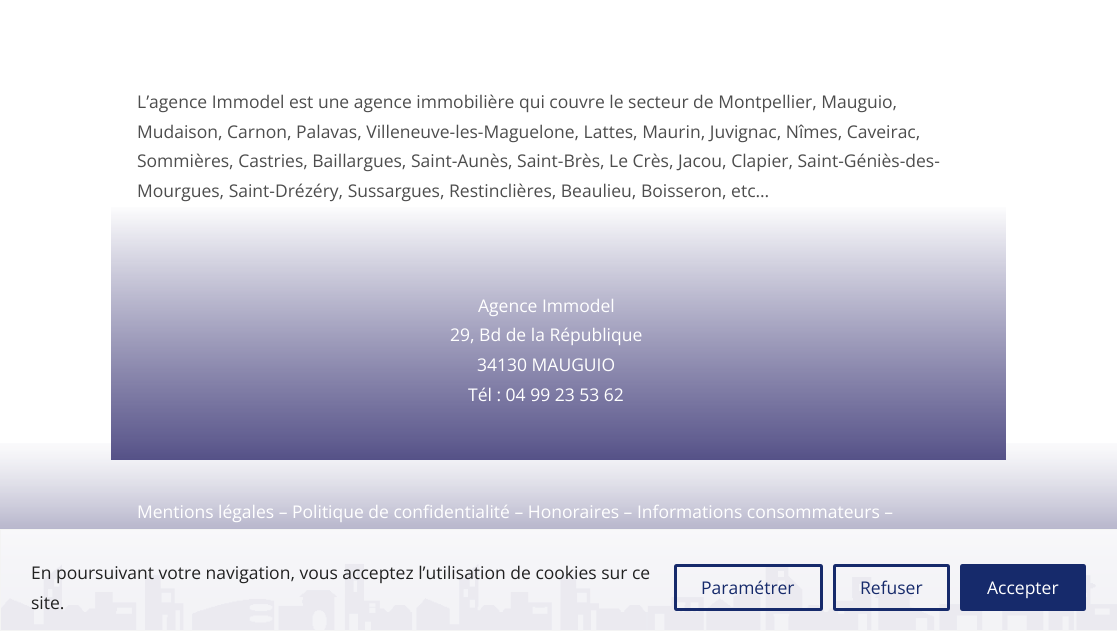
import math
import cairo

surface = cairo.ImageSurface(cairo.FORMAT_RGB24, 1117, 631)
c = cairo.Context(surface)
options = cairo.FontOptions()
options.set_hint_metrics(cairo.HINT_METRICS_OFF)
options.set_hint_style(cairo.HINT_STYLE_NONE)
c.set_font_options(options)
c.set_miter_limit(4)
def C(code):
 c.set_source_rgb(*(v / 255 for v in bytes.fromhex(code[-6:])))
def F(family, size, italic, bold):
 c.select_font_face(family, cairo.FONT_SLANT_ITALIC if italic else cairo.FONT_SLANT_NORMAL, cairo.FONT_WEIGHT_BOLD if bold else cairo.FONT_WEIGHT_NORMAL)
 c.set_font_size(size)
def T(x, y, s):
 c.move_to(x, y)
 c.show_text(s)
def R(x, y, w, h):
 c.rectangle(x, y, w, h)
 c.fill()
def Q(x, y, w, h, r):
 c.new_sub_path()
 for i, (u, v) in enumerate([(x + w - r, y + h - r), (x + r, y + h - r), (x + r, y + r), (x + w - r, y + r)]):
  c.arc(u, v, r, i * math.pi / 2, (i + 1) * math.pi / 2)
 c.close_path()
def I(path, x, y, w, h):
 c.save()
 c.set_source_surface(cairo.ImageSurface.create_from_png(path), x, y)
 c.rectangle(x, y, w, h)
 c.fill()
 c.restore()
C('ffffff')
c.paint()
I('1.png',0,443,1117,187)
gradient = cairo.LinearGradient(559,40,559,460)
gradient.add_color_stop_rgba(.39,1,1,1,.95)
gradient.add_color_stop_rgba(1,0.18,0.161,0.424,.8)
c.set_source(gradient)
R(111,207,895,253)
F('Open Sans',17.5,0,0)
C('4d4d4d')
T(137,108,'L’agence Immodel est une agence immobilière qui couvre le secteur de Montpellier, Mauguio,')
T(137,138,'Mudaison, Carnon, Palavas, Villeneuve-les-Maguelone, Lattes, Maurin, Juvignac, Nîmes, Caveirac,')
T(137,167,'Sommières, Castries, Baillargues, Saint-Aunès, Saint-Brès, Le Crès, Jacou, Clapier, Saint-Géniès-des-')
T(137,197,'Mourgues, Saint-Drézéry, Sussargues, Restinclières, Beaulieu, Boisseron, etc…')
C('ffffff')
T(478,312,'Agence Immodel')
T(450,341,'29, Bd de la République')
T(477,371,'34130 MAUGUIO')
T(468,401,'Tél : 04 99 23 53 62')
T(137,518,'Mentions légales – Politique de confidentialité – Honoraires – Informations consommateurs –')
c.set_source_rgba(1,1,1,0.9)
c.rectangle(.5,529.5,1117,101)
c.fill_preserve()
C('f4f4f4')
c.set_line_width(1)
c.stroke()
C('212121')
T(31,579,'En poursuivant votre navigation, vous acceptez l’utilisation de cookies sur ce')
T(31,609,'site.')
Q(675.5,565.5,146,44,1)
C('162a6b')
c.set_line_width(3)
c.stroke()
T(701,594,'Paramétrer')
Q(834.5,565.5,114,44,1)
c.stroke()
T(860,594,'Refuser')
Q(961.5,565.5,123,44,1)
c.fill_preserve()
c.stroke()
C('ffffff')
T(987,594,'Accepter')
surface.write_to_png('o.png')
